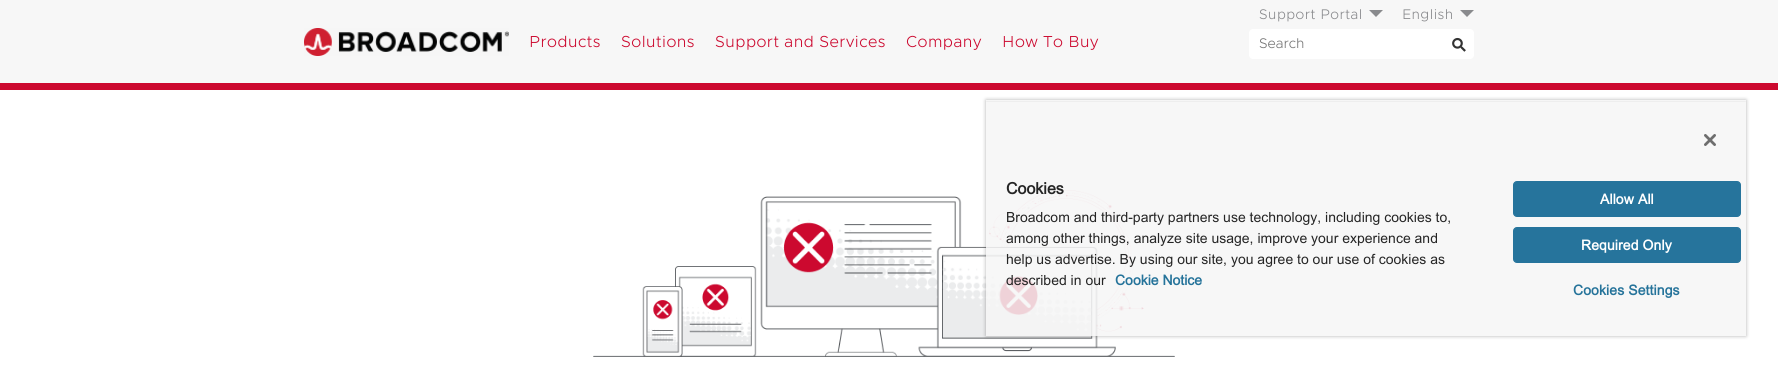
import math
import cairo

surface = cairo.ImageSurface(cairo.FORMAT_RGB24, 1778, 368)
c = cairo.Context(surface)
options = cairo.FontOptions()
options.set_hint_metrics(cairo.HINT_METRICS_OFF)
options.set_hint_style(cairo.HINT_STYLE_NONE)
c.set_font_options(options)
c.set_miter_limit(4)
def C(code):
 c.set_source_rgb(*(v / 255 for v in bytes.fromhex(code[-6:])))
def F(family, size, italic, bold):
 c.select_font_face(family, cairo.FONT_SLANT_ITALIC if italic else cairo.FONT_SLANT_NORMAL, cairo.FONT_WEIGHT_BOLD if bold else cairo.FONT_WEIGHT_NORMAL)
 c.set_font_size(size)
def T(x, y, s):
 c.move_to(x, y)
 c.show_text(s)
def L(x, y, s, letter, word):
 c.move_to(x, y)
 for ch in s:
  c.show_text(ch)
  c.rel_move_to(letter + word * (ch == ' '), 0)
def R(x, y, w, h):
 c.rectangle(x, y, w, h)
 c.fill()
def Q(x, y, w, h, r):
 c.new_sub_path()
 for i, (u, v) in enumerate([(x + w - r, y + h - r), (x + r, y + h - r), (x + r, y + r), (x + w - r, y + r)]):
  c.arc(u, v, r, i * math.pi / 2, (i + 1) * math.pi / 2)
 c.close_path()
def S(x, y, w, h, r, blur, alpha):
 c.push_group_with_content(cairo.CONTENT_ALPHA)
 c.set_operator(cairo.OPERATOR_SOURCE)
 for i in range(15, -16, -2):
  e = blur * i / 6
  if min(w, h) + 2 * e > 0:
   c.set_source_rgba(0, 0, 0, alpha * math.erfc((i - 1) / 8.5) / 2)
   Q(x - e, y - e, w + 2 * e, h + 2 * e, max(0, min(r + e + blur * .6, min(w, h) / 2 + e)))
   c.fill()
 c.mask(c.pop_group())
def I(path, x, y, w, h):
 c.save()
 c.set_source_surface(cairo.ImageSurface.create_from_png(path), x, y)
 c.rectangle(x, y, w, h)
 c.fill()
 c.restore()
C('ffffff')
c.paint()
C('f7f7f7')
R(0,0,1778,83)
C('cc092f')
R(0,83,1778,7)
I('1.png',304,28,205,28)
F('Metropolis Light',14,0,0)
C('898a8d')
L(1259,19,'Support Portal',.5,0)
c.new_path()
c.move_to(1369,10)
c.line_to(1383,10)
c.line_to(1376,17)
c.close_path()
c.fill()
L(1402,19,'English',.5,0)
c.new_path()
c.move_to(1460,10)
c.line_to(1474,10)
c.line_to(1467,17)
c.close_path()
c.fill()
F('Metropolis Light',16,0,0)
C('cc092f')
L(529,47,'Products',.5,0)
L(621,47,'Solutions',.5,0)
L(715,47,'Support and Services',.5,0)
L(906,47,'Company',.5,0)
L(1002,47,'How To Buy',.5,0)
C('ffffff')
Q(1249,29,225,30,4)
c.fill()
F('Metropolis Light',14,0,0)
C('757575')
T(1259,48,'Search')
I('2.png',1452,37,14,15)
I('3.png',593,190,582,167)
c.save()
c.set_fill_rule(cairo.FILL_RULE_EVEN_ODD)
c.new_path()
c.move_to(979,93)
c.line_to(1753,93)
c.line_to(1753,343)
c.line_to(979,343)
c.close_path()
c.move_to(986,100)
c.line_to(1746,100)
c.line_to(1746,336)
c.line_to(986,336)
c.close_path()
c.clip()
C('000000')
S(986,100,760,236,0,2,.3)
c.restore()
c.save()
c.rectangle(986,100,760,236)
c.clip()
c.rectangle(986,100,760,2)
c.clip()
C('262626')
S(986,102,760,234,0,2,.2)
c.restore()
c.set_source_rgba(0.965,0.965,0.965,0.85)
R(986,102,760,234)
I('4.png',1704,134,12,12)
F('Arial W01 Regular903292',16,0,1)
C('252525')
T(1006,194,'Cookies')
F('Arial W01 Regular903292',14,0,0)
T(1006,222,'Broadcom and third-party partners use technology, including cookies to,')
T(1006,243,'among other things, analyze site usage, improve your experience and')
T(1006,264,'help us advertise. By using our site, you agree to our use of cookies as')
T(1006,285,'described in our')
F('Arial W01 Regular903292',14,0,1)
C('25739a')
T(1115,285,'Cookie Notice')
C('26749c')
Q(1513.5,181.5,227,35,3.5)
c.fill_preserve()
c.set_line_width(1)
c.stroke()
C('ffffff')
L(1600,204,'Allow All',.1,0)
C('26749c')
Q(1513.5,227.5,227,35,3.5)
c.fill_preserve()
c.stroke()
C('ffffff')
L(1581,250,'Required Only',.1,0)
C('25739a')
L(1573,295,'Cookies Settings',.1,0)
surface.write_to_png('o.png')
